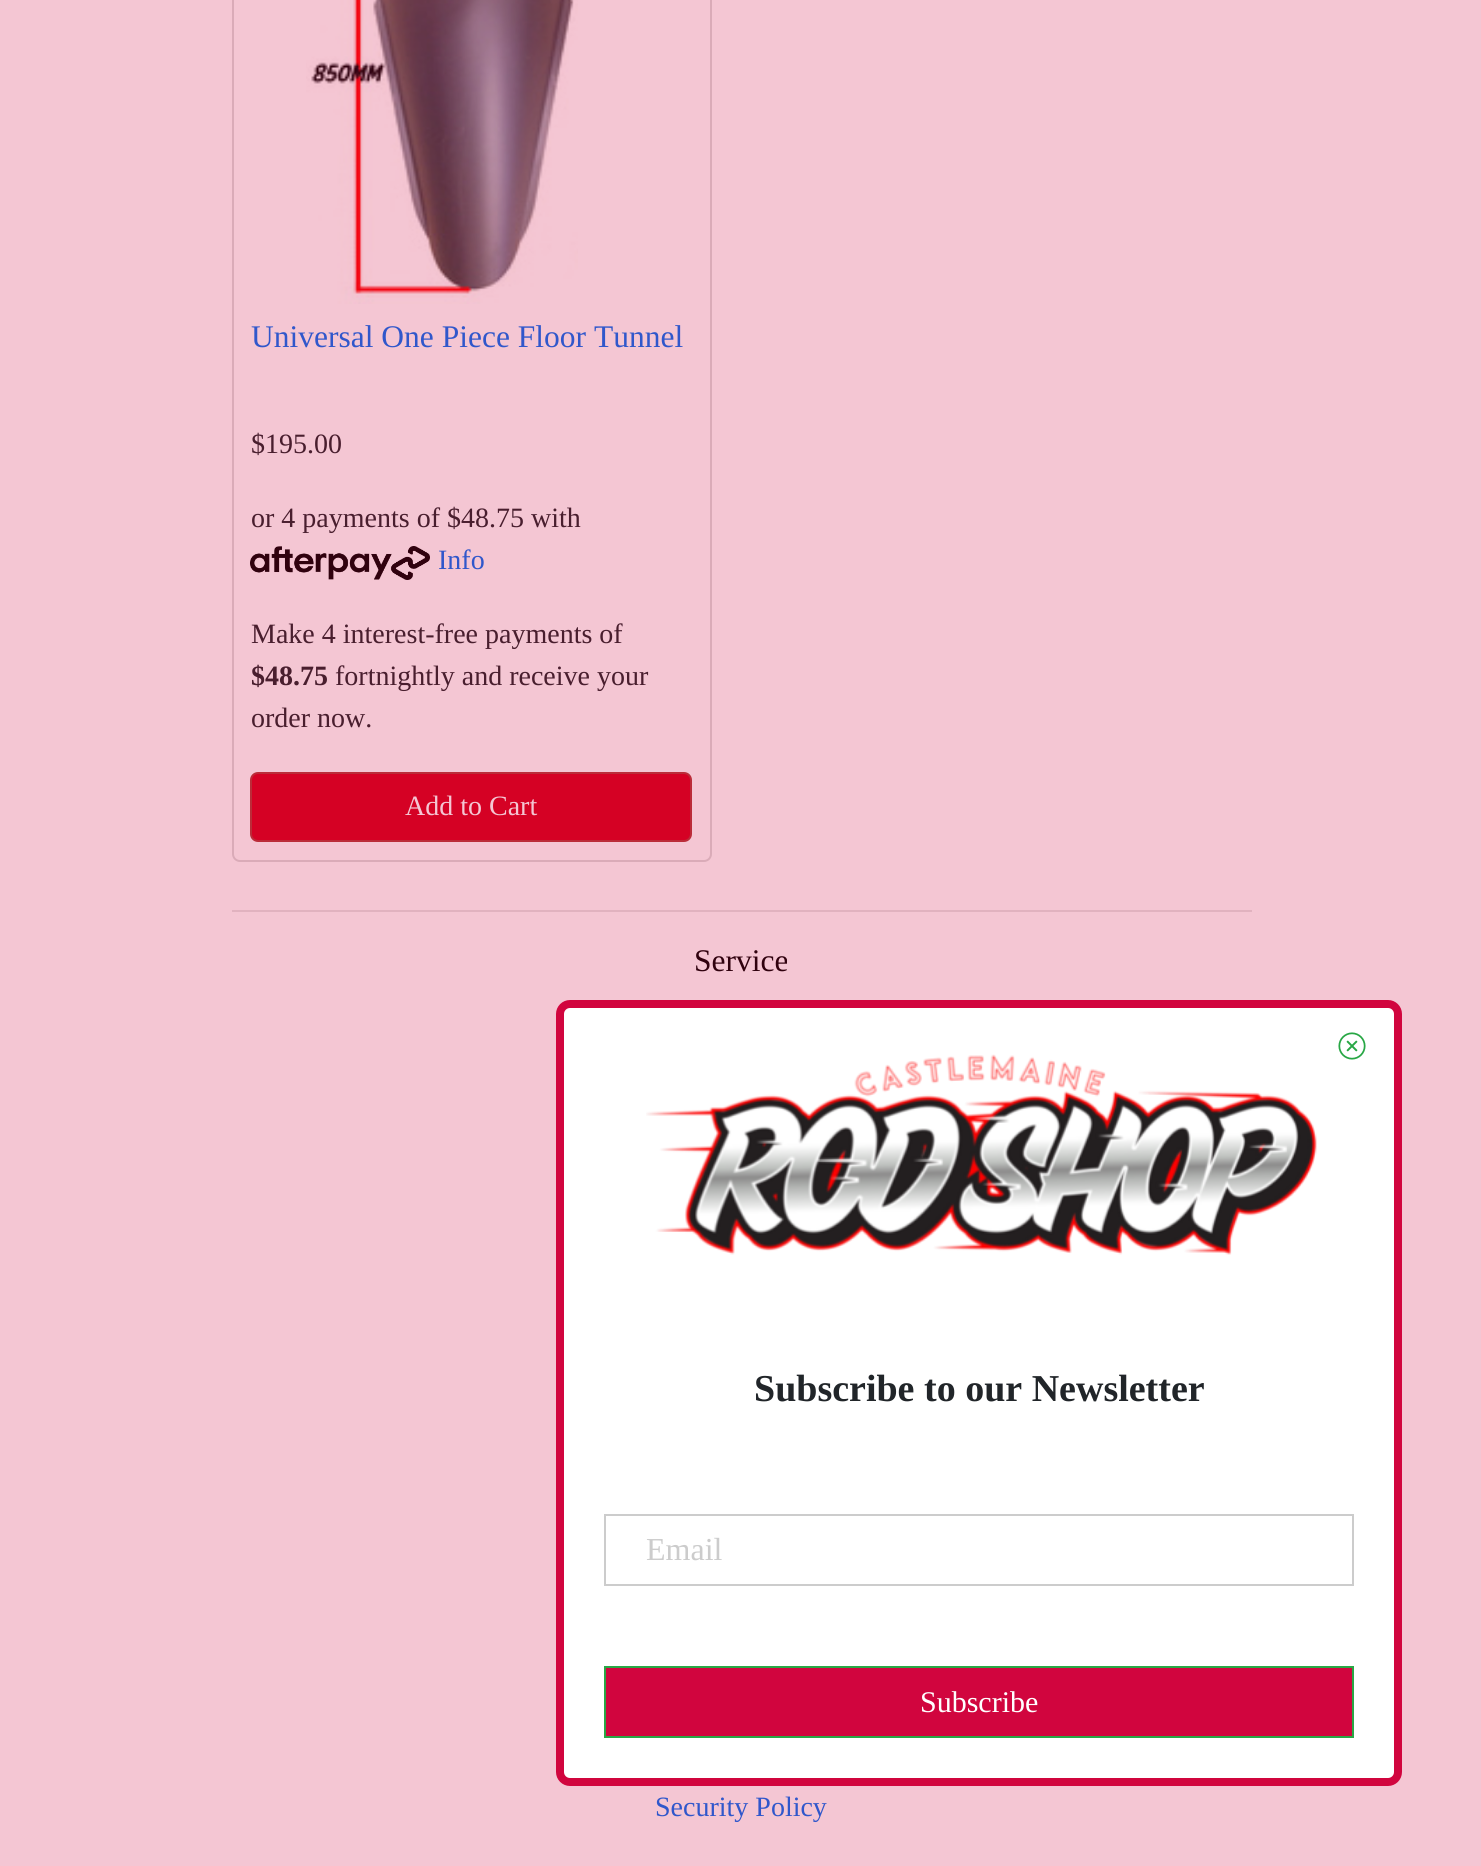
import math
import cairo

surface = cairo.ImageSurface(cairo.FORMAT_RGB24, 1481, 1866)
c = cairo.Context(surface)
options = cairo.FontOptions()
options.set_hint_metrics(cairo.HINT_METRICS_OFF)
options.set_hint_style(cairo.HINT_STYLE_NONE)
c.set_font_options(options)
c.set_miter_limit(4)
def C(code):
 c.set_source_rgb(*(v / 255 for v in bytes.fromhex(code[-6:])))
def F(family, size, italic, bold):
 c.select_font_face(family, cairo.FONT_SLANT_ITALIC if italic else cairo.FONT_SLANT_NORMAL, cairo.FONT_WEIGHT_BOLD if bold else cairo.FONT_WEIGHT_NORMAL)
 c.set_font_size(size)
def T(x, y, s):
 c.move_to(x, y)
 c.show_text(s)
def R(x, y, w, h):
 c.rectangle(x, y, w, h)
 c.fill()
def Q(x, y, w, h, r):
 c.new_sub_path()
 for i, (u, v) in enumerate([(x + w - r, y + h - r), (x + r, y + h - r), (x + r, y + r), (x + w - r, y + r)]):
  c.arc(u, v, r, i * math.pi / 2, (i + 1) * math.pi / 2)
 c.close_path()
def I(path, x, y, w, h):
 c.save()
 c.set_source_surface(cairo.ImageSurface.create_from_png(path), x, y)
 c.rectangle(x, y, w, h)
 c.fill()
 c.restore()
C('f4c6d3')
c.paint()
Q(233,-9,478,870,7)
C('daabb8')
c.stroke()
I('1.png',306,0,272,304)
F('Liberation Serif',31.5,0,0)
C('3057cb')
T(251,347,'Universal One Piece Floor Tunnel')
F('Liberation Serif',28,0,0)
C('491e2e')
T(251,453,'$195.00')
T(251,527,'or 4 payments of $48.75 with')
I('2.png',250,546,180,34)
C('3057cb')
T(438,569,'Info')
C('491e2e')
T(251,643,'Make 4 interest-free payments of')
F('Liberation Serif',28,0,1)
T(251,685,'$48.75')
F('Liberation Serif',28,0,0)
T(335,685,'fortnightly and receive your')
T(251,727,'order now.')
C('d50124')
Q(251,773,440,68,7)
c.fill_preserve()
C('bb2c39')
c.stroke()
C('f4c6d3')
T(405,815,'Add to Cart')
C('e1b2bf')
R(232,910,1020,2)
F('Liberation Serif',31.5,0,0)
C('30010e')
T(694,971,'Service')
F('Liberation Serif',28,0,0)
C('3057cb')
T(655,1816,'Security Policy')
C('ffffff')
Q(560,1004,838,778,10)
c.fill_preserve()
C('d1053e')
c.set_line_width(8)
c.stroke()
I('3.png',1338,1032,28,28)
I('4.png',646,1054,671,201)
F('Liberation Serif',38,0,1)
C('212529')
T(754,1401,'Subscribe to our Newsletter')
c.rectangle(605,1515,748,70)
C('cccccc')
c.set_line_width(2)
c.stroke()
F('Liberation Serif',32,0,0)
T(646,1560,'Email')
C('d1053e')
c.rectangle(605,1667,748,70)
c.fill_preserve()
C('28a745')
c.stroke()
F('Liberation Serif',30,0,0)
C('ffffff')
T(920,1712,'Subscribe')
surface.write_to_png('o.png')
